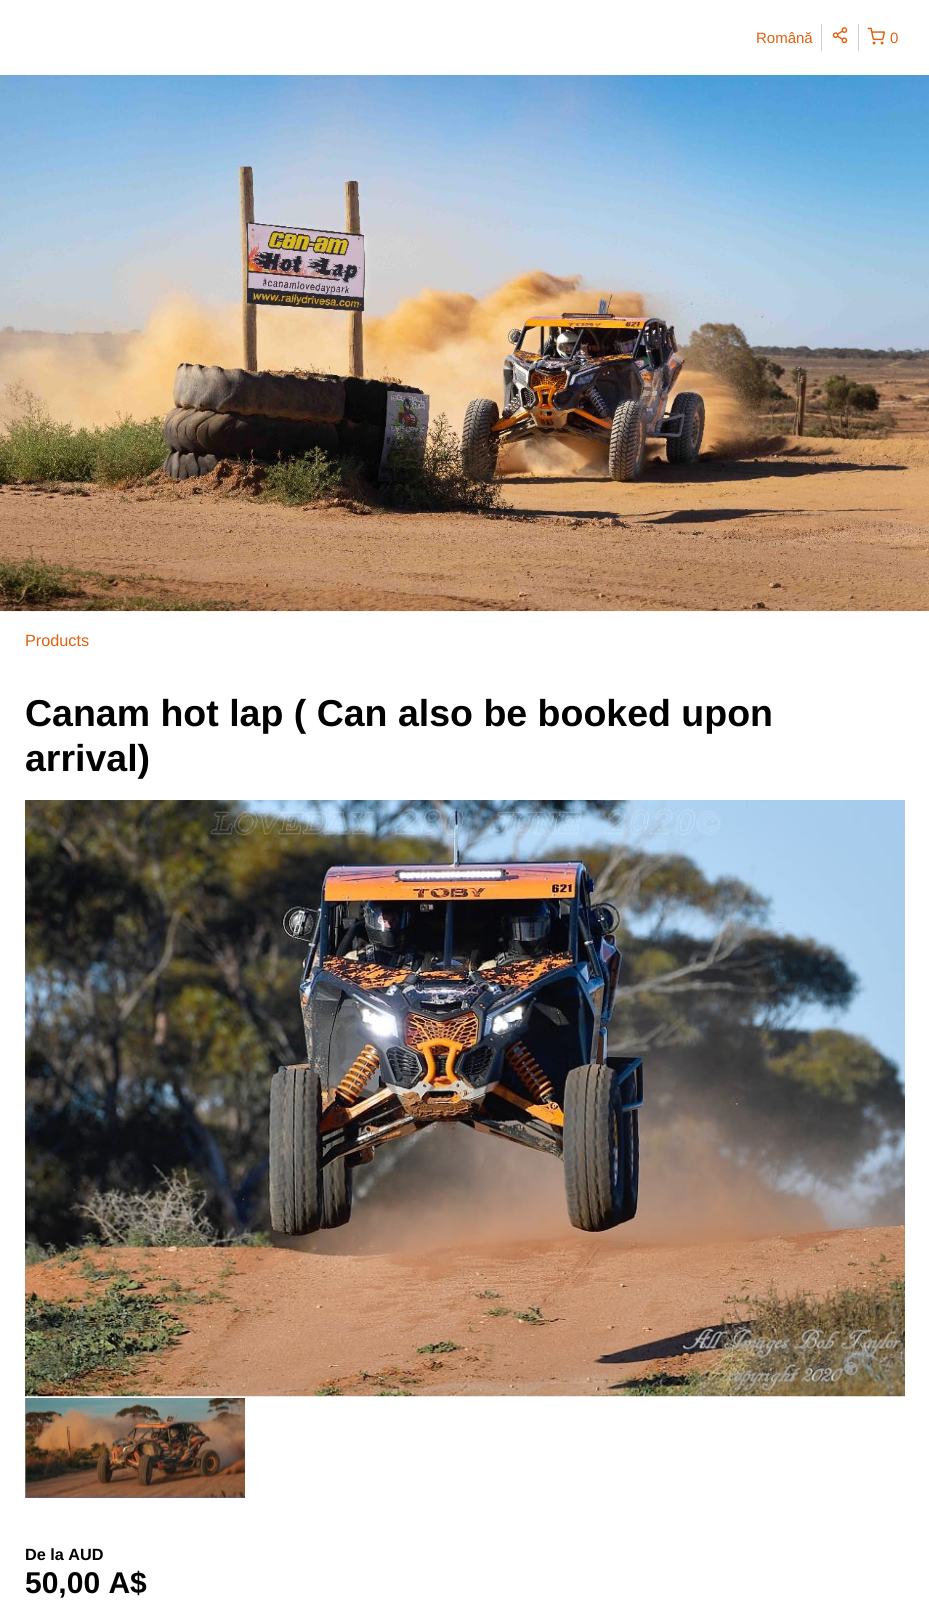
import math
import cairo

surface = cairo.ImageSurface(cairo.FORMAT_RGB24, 929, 1608)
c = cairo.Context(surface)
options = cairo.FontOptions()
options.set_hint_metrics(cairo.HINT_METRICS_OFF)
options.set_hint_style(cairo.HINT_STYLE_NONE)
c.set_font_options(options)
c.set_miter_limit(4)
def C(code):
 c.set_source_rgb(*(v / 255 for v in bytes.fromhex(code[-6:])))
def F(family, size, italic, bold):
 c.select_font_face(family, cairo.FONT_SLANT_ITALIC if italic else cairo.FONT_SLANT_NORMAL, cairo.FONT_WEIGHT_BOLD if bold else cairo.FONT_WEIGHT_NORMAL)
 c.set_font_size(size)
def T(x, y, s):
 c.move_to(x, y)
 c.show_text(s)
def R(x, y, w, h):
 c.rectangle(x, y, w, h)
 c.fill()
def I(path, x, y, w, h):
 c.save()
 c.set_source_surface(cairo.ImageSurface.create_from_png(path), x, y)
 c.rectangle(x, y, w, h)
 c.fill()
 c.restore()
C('ffffff')
c.paint()
C('ccd1ca')
R(821,24,1,27)
F('Liberation Sans',15,0,0)
C('e06010')
T(756,43,'Română')
C('ccd1ca')
R(858,24,1,27)
I('1.png',832,27,16,17)
I('2.png',867,27,18,18)
C('e06010')
T(890,43,'0')
I('3.png',0,75,929,537)
F('Liberation Sans',16.25,0,0)
T(25,646,'Products')
F('Liberation Sans',37.5,0,1)
C('000000')
T(25,726,'Canam hot lap ( Can also be booked upon')
T(25,771,'arrival)')
I('4.png',25,800,880,597)
C('3c68b4')
R(25,1497,220,1)
I('5.png',25,1398,220,100)
c.set_source_rgba(0.596,0.639,0.58,0.5)
R(25,1398,1,100)
F('Liberation Sans',16.25,0,1)
C('000000')
T(25,1560,'De la AUD')
F('Liberation Sans',30,0,1)
T(25,1593,'50,00 A$')
surface.write_to_png('o.png')
